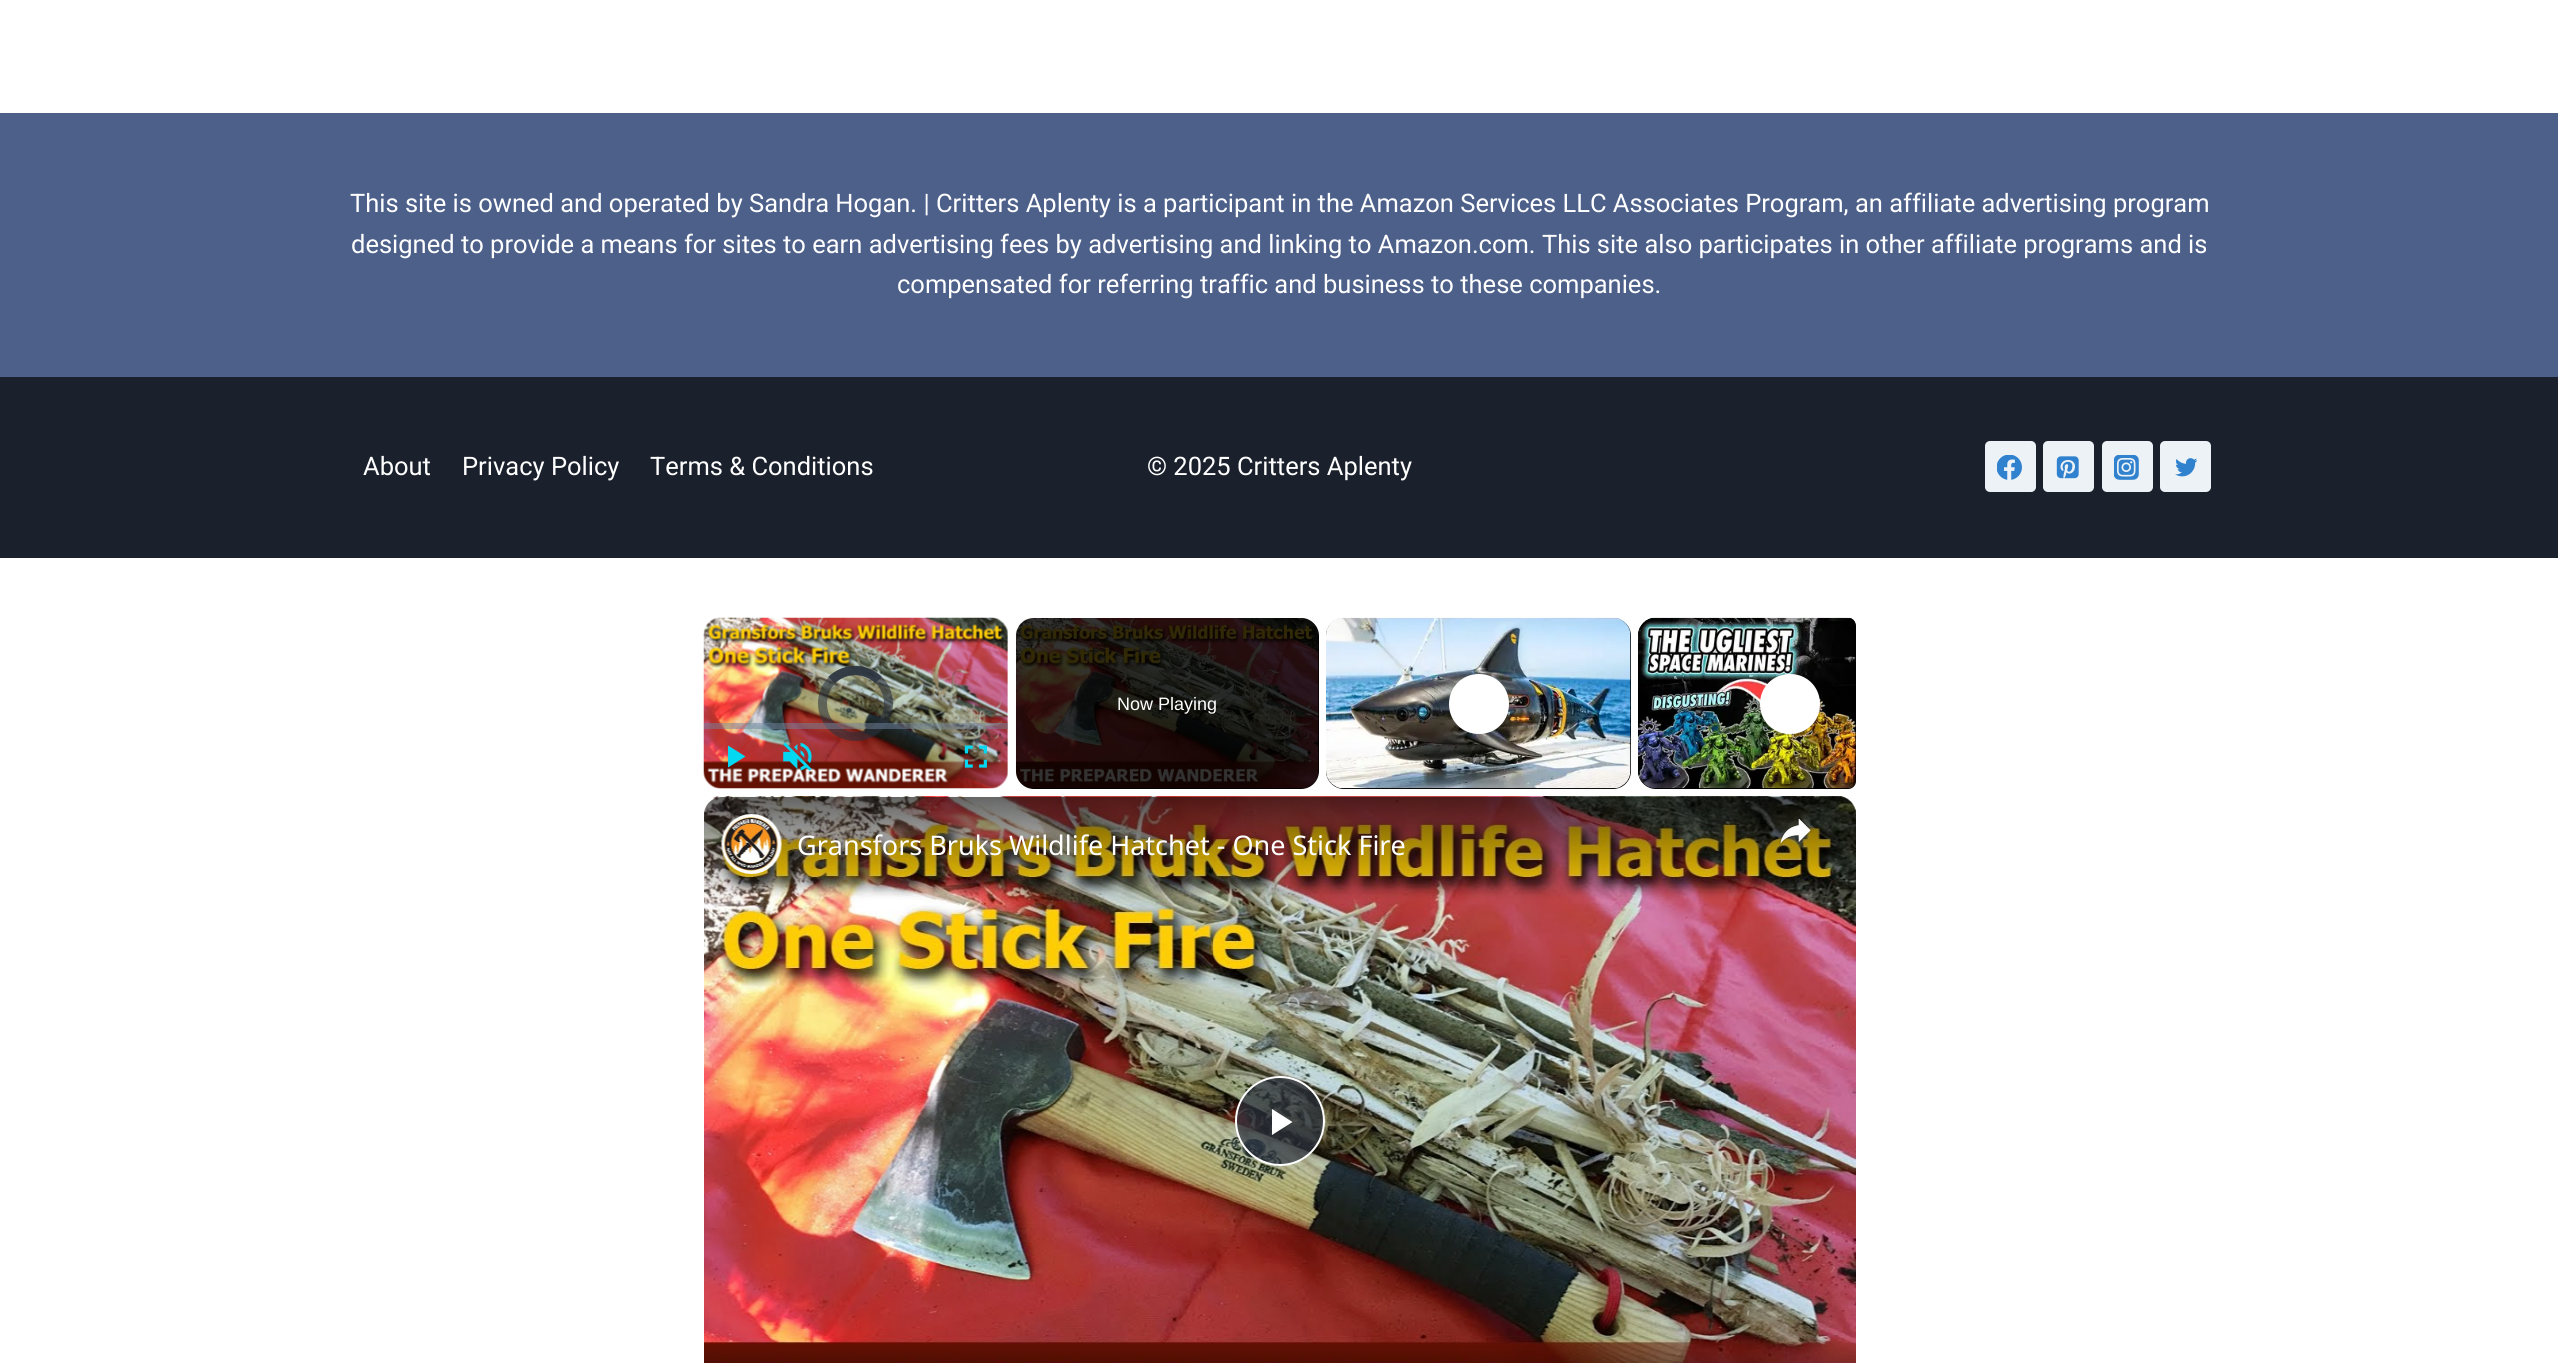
import math
import cairo

surface = cairo.ImageSurface(cairo.FORMAT_RGB24, 2558, 1363)
c = cairo.Context(surface)
options = cairo.FontOptions()
options.set_hint_metrics(cairo.HINT_METRICS_OFF)
options.set_hint_style(cairo.HINT_STYLE_NONE)
c.set_font_options(options)
c.set_miter_limit(4)
def C(code):
 c.set_source_rgb(*(v / 255 for v in bytes.fromhex(code[-6:])))
def F(family, size, italic, bold):
 c.select_font_face(family, cairo.FONT_SLANT_ITALIC if italic else cairo.FONT_SLANT_NORMAL, cairo.FONT_WEIGHT_BOLD if bold else cairo.FONT_WEIGHT_NORMAL)
 c.set_font_size(size)
def T(x, y, s):
 c.move_to(x, y)
 c.show_text(s)
def R(x, y, w, h):
 c.rectangle(x, y, w, h)
 c.fill()
def Q(x, y, w, h, r):
 c.new_sub_path()
 for i, (u, v) in enumerate([(x + w - r, y + h - r), (x + r, y + h - r), (x + r, y + r), (x + w - r, y + r)]):
  c.arc(u, v, r, i * math.pi / 2, (i + 1) * math.pi / 2)
 c.close_path()
def I(path, x, y, w, h):
 c.save()
 c.set_source_surface(cairo.ImageSurface.create_from_png(path), x, y)
 c.rectangle(x, y, w, h)
 c.fill()
 c.restore()
C('ffffff')
c.paint()
C('4d608a')
R(0,113,2558,264)
F('Roboto',25.5,0,0)
C('ffffff')
T(350,212,'This site is owned and operated by Sandra Hogan. | Critters Aplenty is a participant in the Amazon Services LLC Associates Program, an affiliate advertising program')
T(351,253,'designed to provide a means for sites to earn advertising fees by advertising and linking to Amazon.com. This site also participates in other affiliate programs and is')
T(897,293,'compensated for referring traffic and business to these companies.')
C('1a202c')
R(0,377,2558,181)
C('ffffff')
T(363,475,'About')
T(462,475,'Privacy Policy')
T(650,475,'Terms & Conditions')
T(1147,475,'© 2025 Critters Aplenty')
C('edf2f7')
Q(1985,441,51,51,5)
c.fill()
I('1.png',1997,455,25,25)
Q(2043,441,51,51,5)
c.fill()
I('2.png',2056,456,23,23)
Q(2102,441,51,51,5)
c.fill()
I('3.png',2114,455,25,25)
Q(2160,441,51,51,5)
c.fill()
I('4.png',2175,458,23,19)
I('5.png',703,617,305,172)
c.arc(855.5,703.5,33,0,2 * math.pi)
c.set_source_rgba(0.169,0.2,0.247,0.59)
c.set_line_width(9)
c.stroke()
c.new_path()
c.move_to(831.5,680)
c.curve_to(844.5,667.5,865.5,667.5,878.5,680)
c.stroke()
c.new_path()
c.move_to(831.5,680)
c.curve_to(844.5,667.5,865.5,667.5,878.5,680)
c.stroke()
c.set_source_rgba(0.451,0.522,0.624,0.5)
R(704,723,304,6)
C('03d8f3')
c.new_path()
c.move_to(728,745.5)
c.line_to(728,767.5)
c.line_to(745.5,756.5)
c.close_path()
c.fill()
I('6.png',783,742,29,29)
I('7.png',964,745,23,23)
C('000000')
Q(1016,618,303,171,18)
c.fill()
I('8.png',1015,618,304,170)
F('Liberation Sans',18,0,0)
C('ffffff')
T(1117,710,'Now Playing')
C('000000')
Q(1326,618,305,171,18)
c.fill()
I('9.png',1326,617,305,172)
C('ffffff')
c.new_path()
c.move_to(1479,674)
c.curve_to(1462,674,1449,687,1449,704)
c.curve_to(1449,721,1462,734,1479,734)
c.curve_to(1496,734,1509,721,1509,704)
c.curve_to(1509,687,1496,674,1479,674)
c.close_path()
c.fill()
C('000000')
c.new_path()
c.move_to(1656,618)
c.line_to(1848,618)
c.curve_to(1852.5,618,1856,621.5,1856,626)
c.line_to(1856,781)
c.curve_to(1856,785.5,1852.5,789,1848,789)
c.line_to(1656,789)
c.curve_to(1646,789,1638,781,1638,771)
c.line_to(1638,636)
c.curve_to(1638,626,1646,618,1656,618)
c.close_path()
c.fill()
I('10.png',1638,617,218,172)
C('ffffff')
c.new_path()
c.move_to(1790,674)
c.curve_to(1773,674,1760,687,1760,704)
c.curve_to(1760,721,1773,734,1790,734)
c.curve_to(1807,734,1820,721,1820,704)
c.curve_to(1820,687,1807,674,1790,674)
c.close_path()
c.fill()
I('11.png',704,796,1152,567)
I('12.png',704,796,1152,18)
c.set_source_rgba(0.169,0.2,0.247,0.7)
c.arc(1280,1121,44,0,2 * math.pi)
c.fill_preserve()
C('ffffff')
c.set_line_width(2)
c.stroke()
c.new_path()
c.move_to(1272,1109)
c.line_to(1272,1135)
c.line_to(1292.5,1122)
c.close_path()
c.fill()
gradient = cairo.LinearGradient(1280,797,1280,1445)
gradient.add_color_stop_rgba(0,0,0,0,.6)
gradient.add_color_stop_rgba(.16,0,0,0,0)
gradient.add_color_stop_rgba(.84,0,0,0,0)
gradient.add_color_stop_rgba(1,0,0,0,.8)
c.set_source(gradient)
Q(704,797,1152,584,18)
c.fill()
I('13.png',721,814,61,60)
F('Noto Sans',27,0,0)
C('ffffff')
T(797,855,'Gransfors Bruks Wildlife Hatchet - One Stick Fire')
I('14.png',1779,817,34,28)
surface.write_to_png('o.png')
